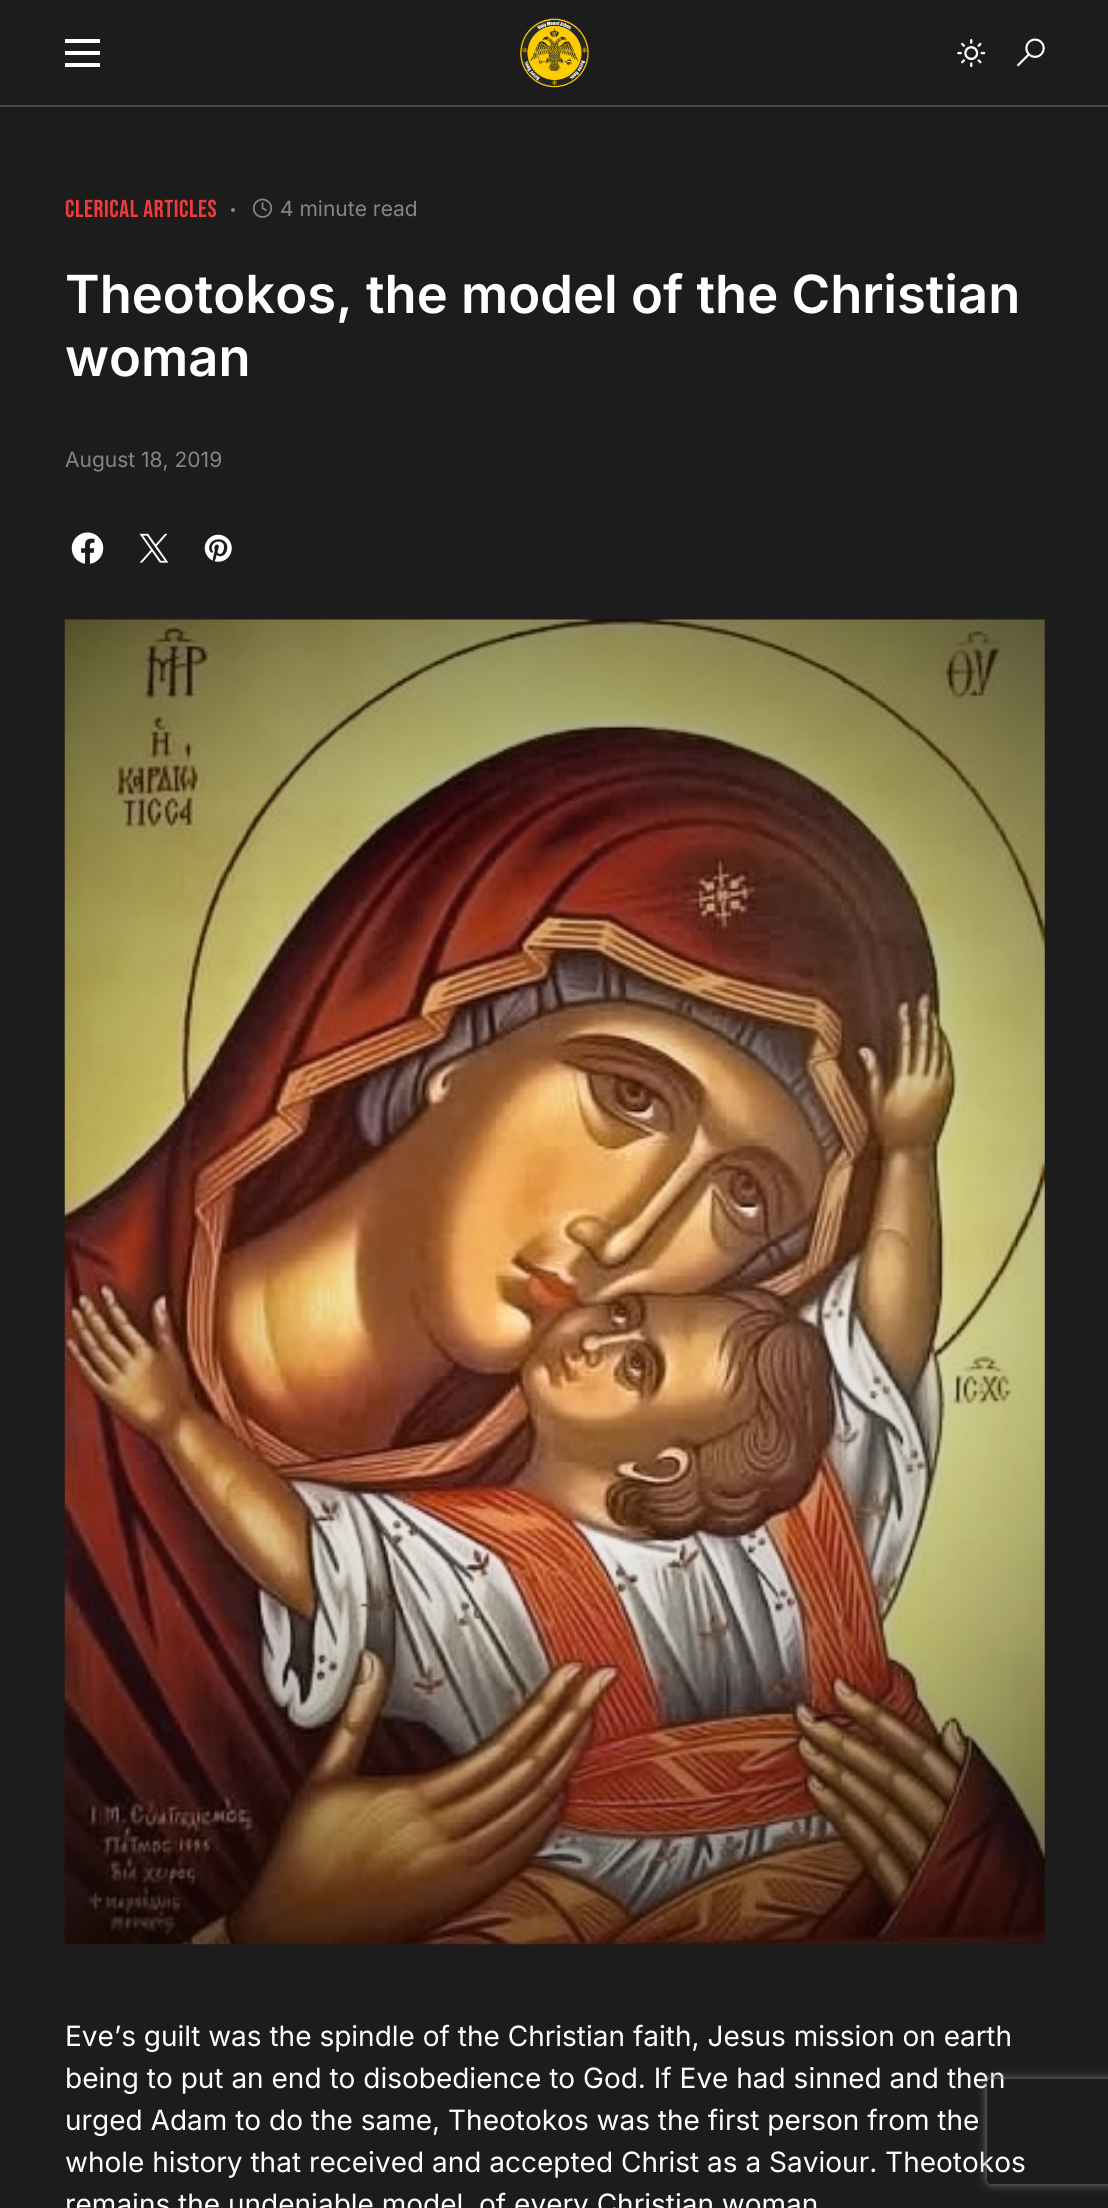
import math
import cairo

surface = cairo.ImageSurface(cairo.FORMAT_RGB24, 1108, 2208)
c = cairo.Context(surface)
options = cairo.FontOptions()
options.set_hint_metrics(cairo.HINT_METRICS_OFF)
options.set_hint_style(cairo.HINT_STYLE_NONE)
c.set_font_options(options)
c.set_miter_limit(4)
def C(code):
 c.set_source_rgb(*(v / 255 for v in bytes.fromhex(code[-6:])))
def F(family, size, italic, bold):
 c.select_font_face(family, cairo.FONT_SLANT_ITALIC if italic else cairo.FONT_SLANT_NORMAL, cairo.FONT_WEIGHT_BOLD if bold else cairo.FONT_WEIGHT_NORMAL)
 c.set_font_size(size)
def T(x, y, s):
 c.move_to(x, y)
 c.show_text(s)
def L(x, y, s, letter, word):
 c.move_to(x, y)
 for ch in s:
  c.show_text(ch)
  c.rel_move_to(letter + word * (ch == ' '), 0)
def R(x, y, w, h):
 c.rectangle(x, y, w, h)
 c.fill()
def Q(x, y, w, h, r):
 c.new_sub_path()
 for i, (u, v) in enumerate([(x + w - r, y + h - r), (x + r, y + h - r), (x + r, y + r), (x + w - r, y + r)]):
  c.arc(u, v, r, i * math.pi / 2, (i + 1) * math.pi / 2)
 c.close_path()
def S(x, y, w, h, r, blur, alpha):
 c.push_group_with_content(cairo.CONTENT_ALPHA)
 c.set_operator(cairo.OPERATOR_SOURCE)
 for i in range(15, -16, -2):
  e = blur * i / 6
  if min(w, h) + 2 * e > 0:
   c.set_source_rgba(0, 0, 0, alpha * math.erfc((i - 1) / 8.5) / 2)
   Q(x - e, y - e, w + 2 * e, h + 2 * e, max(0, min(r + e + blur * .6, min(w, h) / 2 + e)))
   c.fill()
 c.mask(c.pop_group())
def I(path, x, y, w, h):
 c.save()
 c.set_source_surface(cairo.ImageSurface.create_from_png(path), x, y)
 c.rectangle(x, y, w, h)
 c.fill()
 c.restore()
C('1c1c1c')
c.paint()
C('49494b')
R(0,105,1108,2)
C('ffffff')
R(65,39,35,4)
R(65,51,35,4)
R(65,63,35,4)
I('1.png',520,17,69,71)
I('2.png',957,39,29,29)
I('3.png',1016,38,29,29)
F('Bebas Neue',24.5,0,0)
C('f23a3a')
L(65,217,'CLERICAL ARTICLES',.6,0)
C('858585')
c.new_path()
c.arc(233,210,2,0,2 * math.pi)
c.fill()
I('4.png',252,198,21,20)
F('Inter',21,0,0)
T(280,216,'4 minute read')
F('Inter SemiBold',52.5,0,0)
C('ffffff')
T(65,313,'Theotokos, the model of the Christian')
T(65,376,'woman')
F('Inter',21,0,0)
C('858585')
T(65,467,'August 18, 2019')
I('5.png',71,532,33,32)
I('6.png',139,533,30,30)
I('7.png',204,534,28,28)
I('8.png',64,619,981,1326)
F('Inter',28,0,0)
C('ffffff')
T(65,2046,'Eve’s guilt was the spindle of the Christian faith, Jesus mission on earth')
T(65,2088,'being to put an end to disobedience to God. If Eve had sinned and then')
T(65,2130,'urged Adam to do the same, Theotokos was the first person from the')
T(65,2172,'whole history that received and accepted Christ as a Saviour. Theotokos')
T(65,2214,'remains the undeniable model  of every Christian woman')
c.save()
c.set_fill_rule(cairo.FILL_RULE_EVEN_ODD)
c.new_path()
c.move_to(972,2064)
c.line_to(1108,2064)
c.line_to(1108,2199)
c.line_to(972,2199)
c.close_path()
c.move_to(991,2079)
c.line_to(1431,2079)
c.curve_to(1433,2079,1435,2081,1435,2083)
c.line_to(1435,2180)
c.curve_to(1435,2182,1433,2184,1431,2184)
c.line_to(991,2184)
c.curve_to(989,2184,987,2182,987,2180)
c.line_to(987,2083)
c.curve_to(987,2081,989,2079,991,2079)
c.close_path()
c.clip()
C('808080')
S(987,2079,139,105,4,4.5,1)
c.restore()
surface.write_to_png('o.png')
